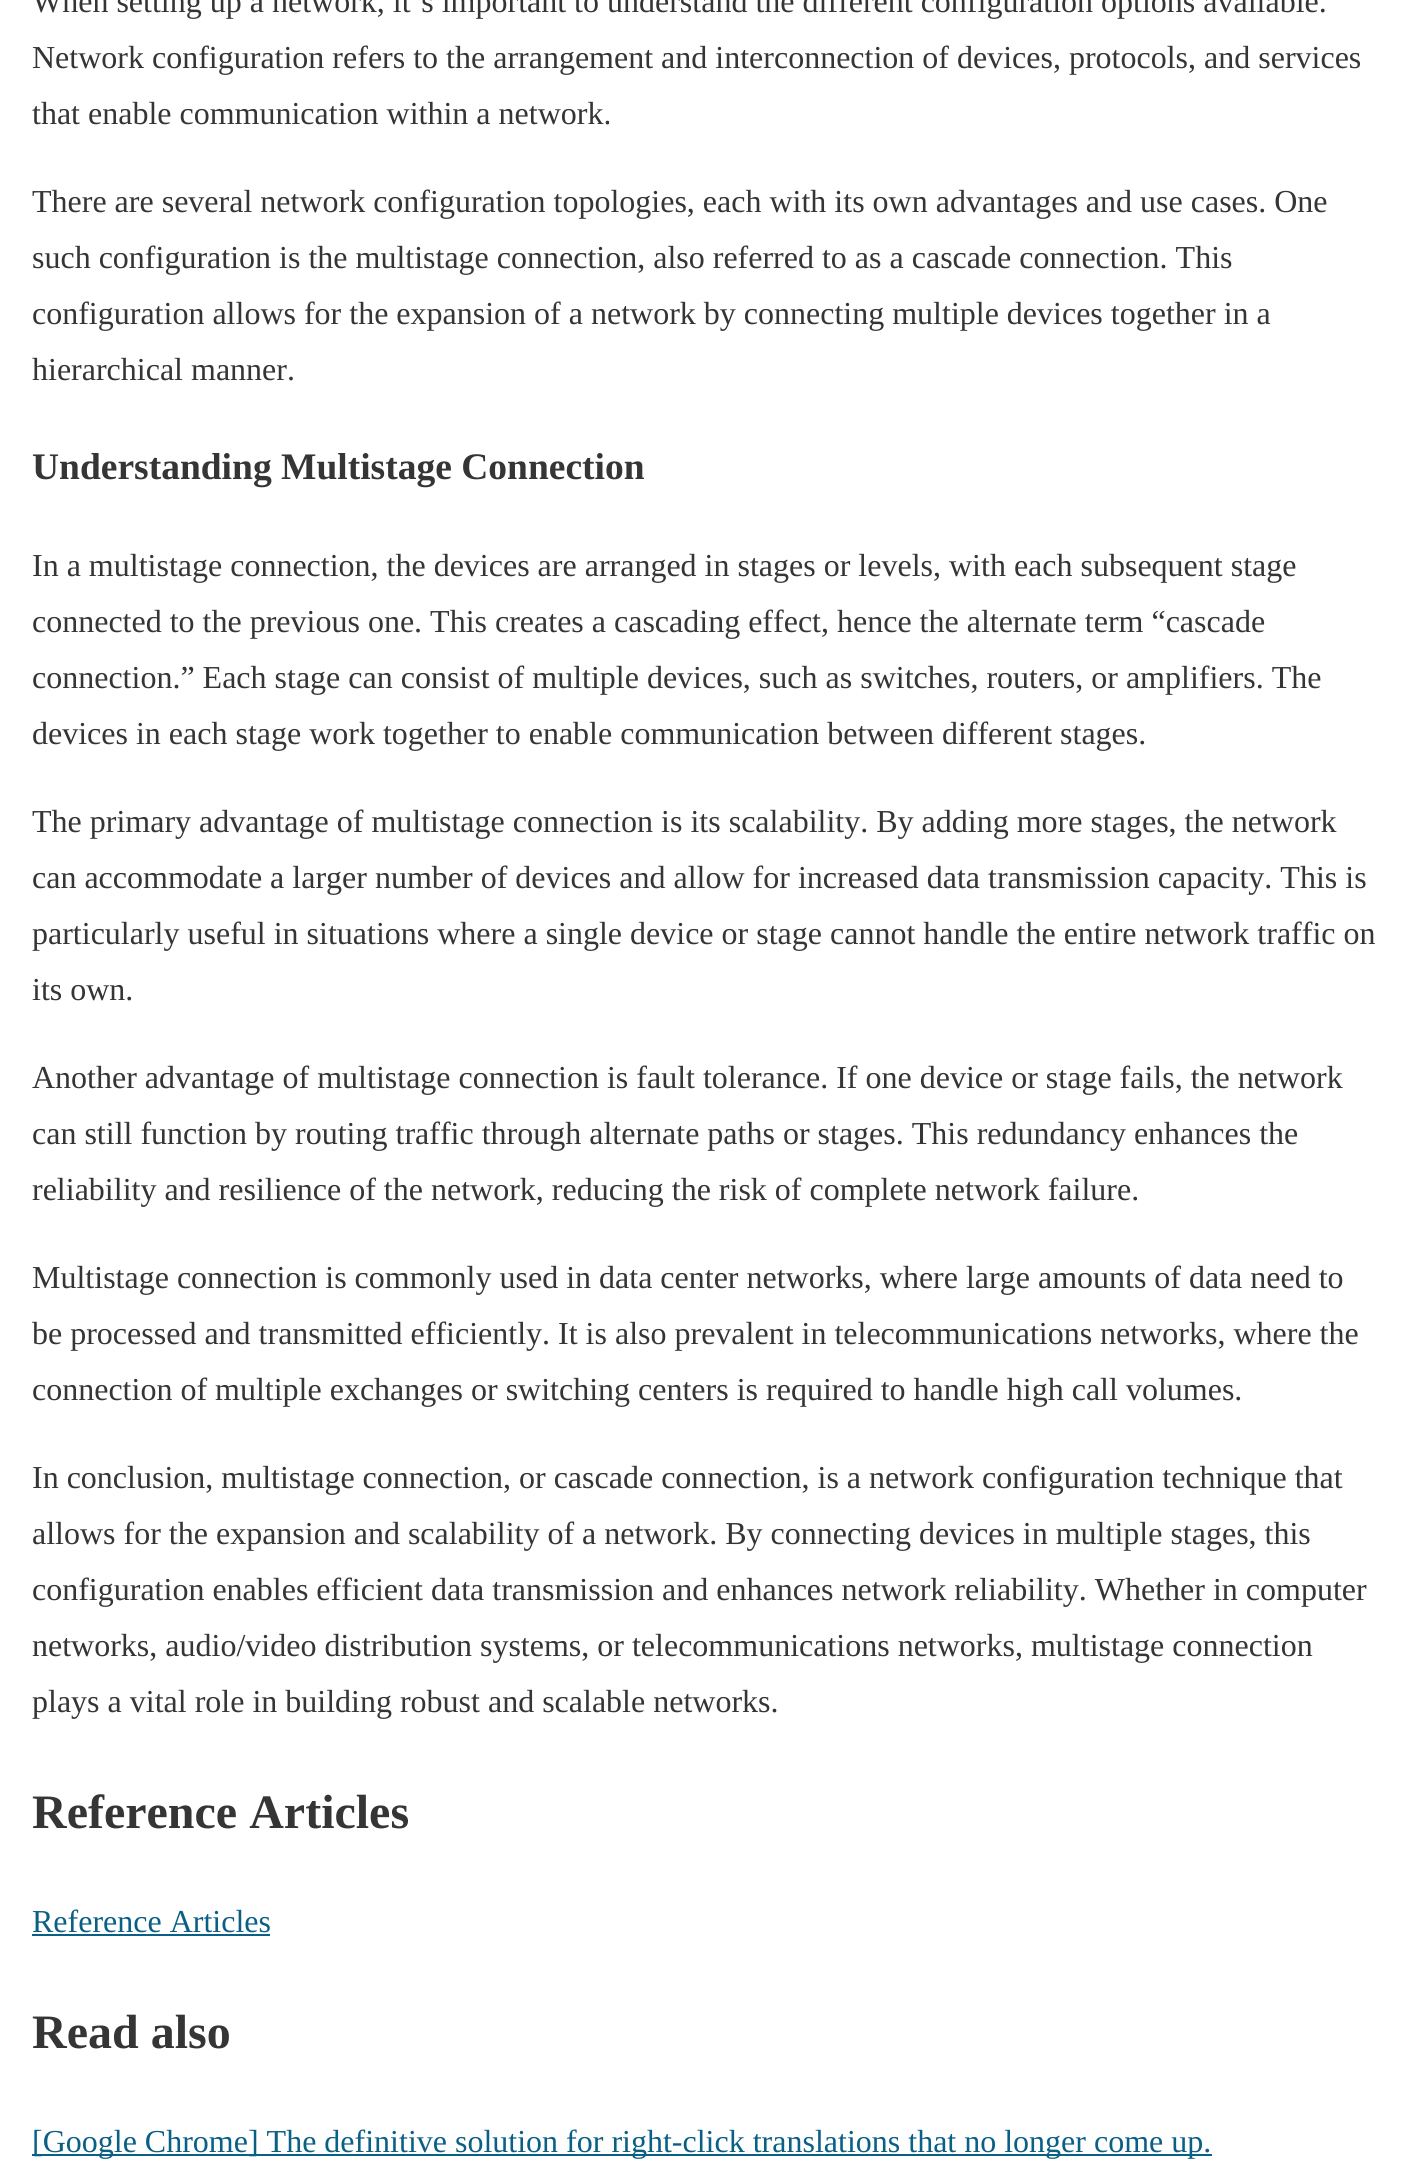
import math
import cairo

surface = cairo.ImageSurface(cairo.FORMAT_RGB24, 1411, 2162)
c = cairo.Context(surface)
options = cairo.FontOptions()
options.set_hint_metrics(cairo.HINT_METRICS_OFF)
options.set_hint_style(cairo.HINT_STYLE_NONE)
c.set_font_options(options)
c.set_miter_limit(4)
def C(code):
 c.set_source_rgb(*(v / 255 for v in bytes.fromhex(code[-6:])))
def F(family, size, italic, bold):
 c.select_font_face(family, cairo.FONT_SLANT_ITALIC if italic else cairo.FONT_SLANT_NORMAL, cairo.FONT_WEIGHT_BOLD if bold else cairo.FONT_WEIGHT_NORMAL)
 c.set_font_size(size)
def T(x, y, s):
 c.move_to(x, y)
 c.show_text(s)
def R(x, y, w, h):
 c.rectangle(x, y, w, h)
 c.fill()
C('ffffff')
c.paint()
F('Liberation Serif',32,0,0)
C('353535')
T(32,12,'When setting up a network, it’s important to understand the different configuration options available.')
T(32,68,'Network configuration refers to the arrangement and interconnection of devices, protocols, and services')
T(32,124,'that enable communication within a network.')
T(32,212,'There are several network configuration topologies, each with its own advantages and use cases. One')
T(32,268,'such configuration is the multistage connection, also referred to as a cascade connection. This')
T(32,324,'configuration allows for the expansion of a network by connecting multiple devices together in a')
T(32,380,'hierarchical manner.')
F('Liberation Serif',37.5,0,1)
T(32,479,'Understanding Multistage Connection')
F('Liberation Serif',32,0,0)
T(32,576,'In a multistage connection, the devices are arranged in stages or levels, with each subsequent stage')
T(32,632,'connected to the previous one. This creates a cascading effect, hence the alternate term “cascade')
T(32,688,'connection.” Each stage can consist of multiple devices, such as switches, routers, or amplifiers. The')
T(32,744,'devices in each stage work together to enable communication between different stages.')
T(32,832,'The primary advantage of multistage connection is its scalability. By adding more stages, the network')
T(32,888,'can accommodate a larger number of devices and allow for increased data transmission capacity. This is')
T(32,944,'particularly useful in situations where a single device or stage cannot handle the entire network traffic on')
T(32,1000,'its own.')
T(32,1088,'Another advantage of multistage connection is fault tolerance. If one device or stage fails, the network')
T(32,1144,'can still function by routing traffic through alternate paths or stages. This redundancy enhances the')
T(32,1200,'reliability and resilience of the network, reducing the risk of complete network failure.')
T(32,1288,'Multistage connection is commonly used in data center networks, where large amounts of data need to')
T(32,1344,'be processed and transmitted efficiently. It is also prevalent in telecommunications networks, where the')
T(32,1400,'connection of multiple exchanges or switching centers is required to handle high call volumes.')
T(32,1488,'In conclusion, multistage connection, or cascade connection, is a network configuration technique that')
T(32,1544,'allows for the expansion and scalability of a network. By connecting devices in multiple stages, this')
T(32,1600,'configuration enables efficient data transmission and enhances network reliability. Whether in computer')
T(32,1656,'networks, audio/video distribution systems, or telecommunications networks, multistage connection')
T(32,1712,'plays a vital role in building robust and scalable networks.')
F('Liberation Serif',48,0,1)
T(32,1828,'Reference Articles')
F('Liberation Serif',32,0,0)
C('0a5f85')
T(32,1932,'Reference Articles')
R(32,1934,238,2)
F('Liberation Serif',48,0,1)
C('353535')
T(32,2048,'Read also')
C('0a5f85')
R(32,2154,1180,2)
F('Liberation Serif',32,0,0)
T(32,2152,'[Google Chrome] The definitive solution for right-click translations that no longer come up.')
surface.write_to_png('o.png')
